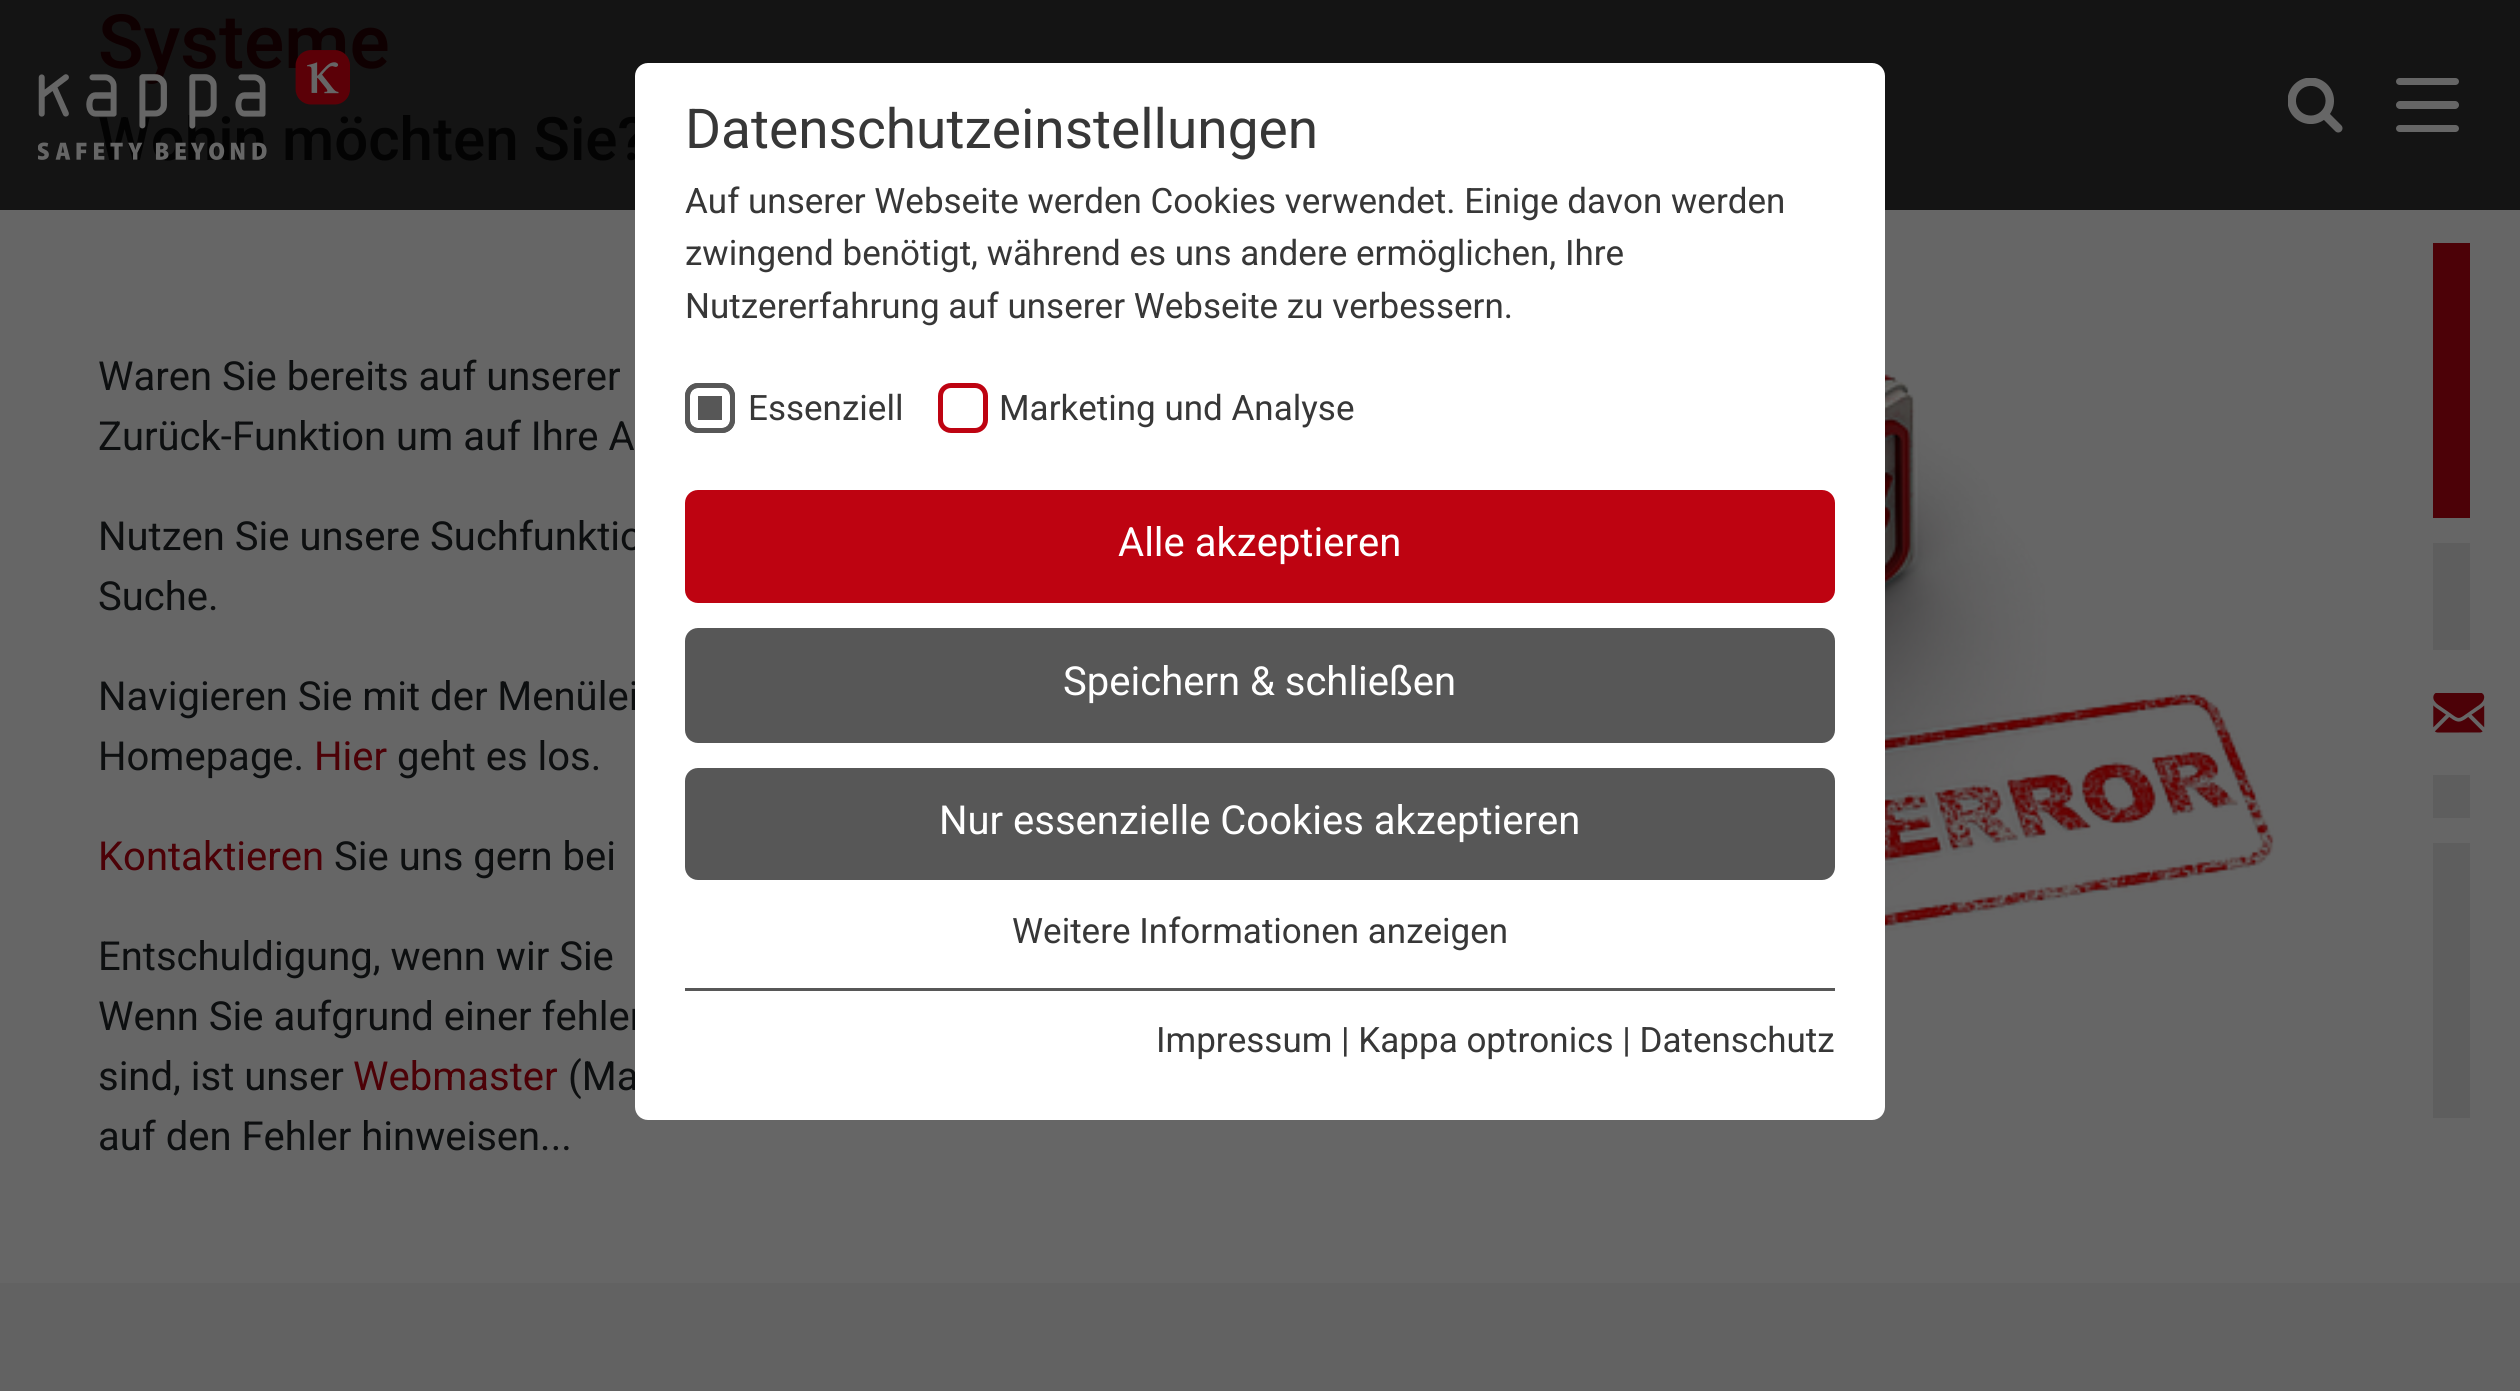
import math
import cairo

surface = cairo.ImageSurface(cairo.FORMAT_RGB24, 2520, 1391)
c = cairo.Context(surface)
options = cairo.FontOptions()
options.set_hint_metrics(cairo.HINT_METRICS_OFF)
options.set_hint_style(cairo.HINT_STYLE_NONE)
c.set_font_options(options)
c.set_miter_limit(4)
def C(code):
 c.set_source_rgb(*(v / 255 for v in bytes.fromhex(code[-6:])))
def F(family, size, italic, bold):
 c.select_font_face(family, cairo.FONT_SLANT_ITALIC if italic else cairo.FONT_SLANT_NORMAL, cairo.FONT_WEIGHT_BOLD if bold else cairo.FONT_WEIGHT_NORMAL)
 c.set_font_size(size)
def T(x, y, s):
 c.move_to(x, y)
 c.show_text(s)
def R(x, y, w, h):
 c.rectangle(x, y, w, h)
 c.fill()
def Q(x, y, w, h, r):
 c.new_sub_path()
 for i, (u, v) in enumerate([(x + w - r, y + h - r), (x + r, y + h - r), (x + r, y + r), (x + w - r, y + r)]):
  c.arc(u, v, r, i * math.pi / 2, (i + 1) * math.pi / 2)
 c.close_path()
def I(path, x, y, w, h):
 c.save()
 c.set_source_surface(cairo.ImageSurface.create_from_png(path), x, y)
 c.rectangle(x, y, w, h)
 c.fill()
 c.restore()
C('666666')
c.paint()
C('141414')
R(0,0,2520,210)
F('Heebo Medium',75,0,0)
C('0f0001')
T(98,68,'Systeme')
F('Heebo Medium',60,0,0)
C('030303')
T(98,160,'Wohin möchten Sie?')
F('Heebo',40,0,0)
C('0d0f10')
T(98,390,'Waren Sie bereits auf unserer')
T(98,450,'Zurück-Funktion um auf Ihre A')
T(98,550,'Nutzen Sie unsere Suchfunktio')
T(98,610,'Suche.')
T(98,710,'Navigieren Sie mit der Menülei')
T(98,770,'Homepage.')
C('4c0107')
T(314,770,'Hier')
C('0d0f10')
T(397,770,'geht es los.')
C('4c0107')
T(98,870,'Kontaktieren')
C('0d0f10')
T(334,870,'Sie uns gern bei')
T(98,970,'Entschuldigung, wenn wir Sie')
T(98,1030,'Wenn Sie aufgrund einer fehler')
T(98,1090,'sind, ist unser')
C('4c0107')
T(353,1090,'Webmaster')
C('0d0f10')
T(568,1090,'(Ma')
T(98,1150,'auf den Fehler hinweisen...')
I('1.png',1885,360,389,613)
I('2.png',38,50,312,110)
I('3.png',2288,78,55,55)
C('666666')
Q(2396,78,63,7,3.5)
c.fill()
Q(2396,101,63,8,4)
c.fill()
Q(2396,125,63,7,3.5)
c.fill()
C('ffffff')
Q(635,63,1250,1057,13)
c.fill()
F('Heebo',55,0,0)
C('373737')
T(685,148,'Datenschutzeinstellungen')
F('Heebo',35,0,0)
T(685,213,'Auf unserer Webseite werden Cookies verwendet. Einige davon werden')
T(685,265,'zwingend benötigt, während es uns andere ermöglichen, Ihre')
T(685,318,'Nutzererfahrung auf unserer Webseite zu verbessern.')
C('575757')
Q(685,383,50,50,13)
c.fill()
Q(694,392,32,32,4)
C('ffffff')
c.set_line_width(8)
c.stroke()
Q(687.5,385.5,45,45,10.5)
C('575757')
c.set_line_width(5)
c.stroke()
C('373737')
T(748,420,'Essenziell')
Q(940.5,385.5,45,45,10.5)
C('be0311')
c.stroke()
C('373737')
T(999,420,'Marketing und Analyse')
C('be0311')
Q(685,490,1150,113,13)
c.fill()
F('Heebo',40,0,0)
C('ffffff')
T(1118,556,'Alle akzeptieren')
C('575757')
Q(685,628,1150,115,13)
c.fill()
C('ffffff')
T(1063,695,'Speichern & schließen')
C('575757')
Q(685,768,1150,112,13)
c.fill()
C('ffffff')
T(939,834,'Nur essenzielle Cookies akzeptieren')
F('Heebo',35,0,0)
C('373737')
T(1012,943,'Weitere Informationen anzeigen')
C('575757')
R(685,988,1150,3)
C('373737')
T(1156,1052,'Impressum | Kappa optronics | Datenschutz')
C('4c0107')
R(2433,243,37,275)
C('5e5e5e')
R(2433,543,37,275)
R(2433,843,37,275)
C('666666')
R(2433,650,37,125)
I('4.png',2433,693,52,40)
C('626262')
R(0,1283,2520,108)
surface.write_to_png('o.png')
